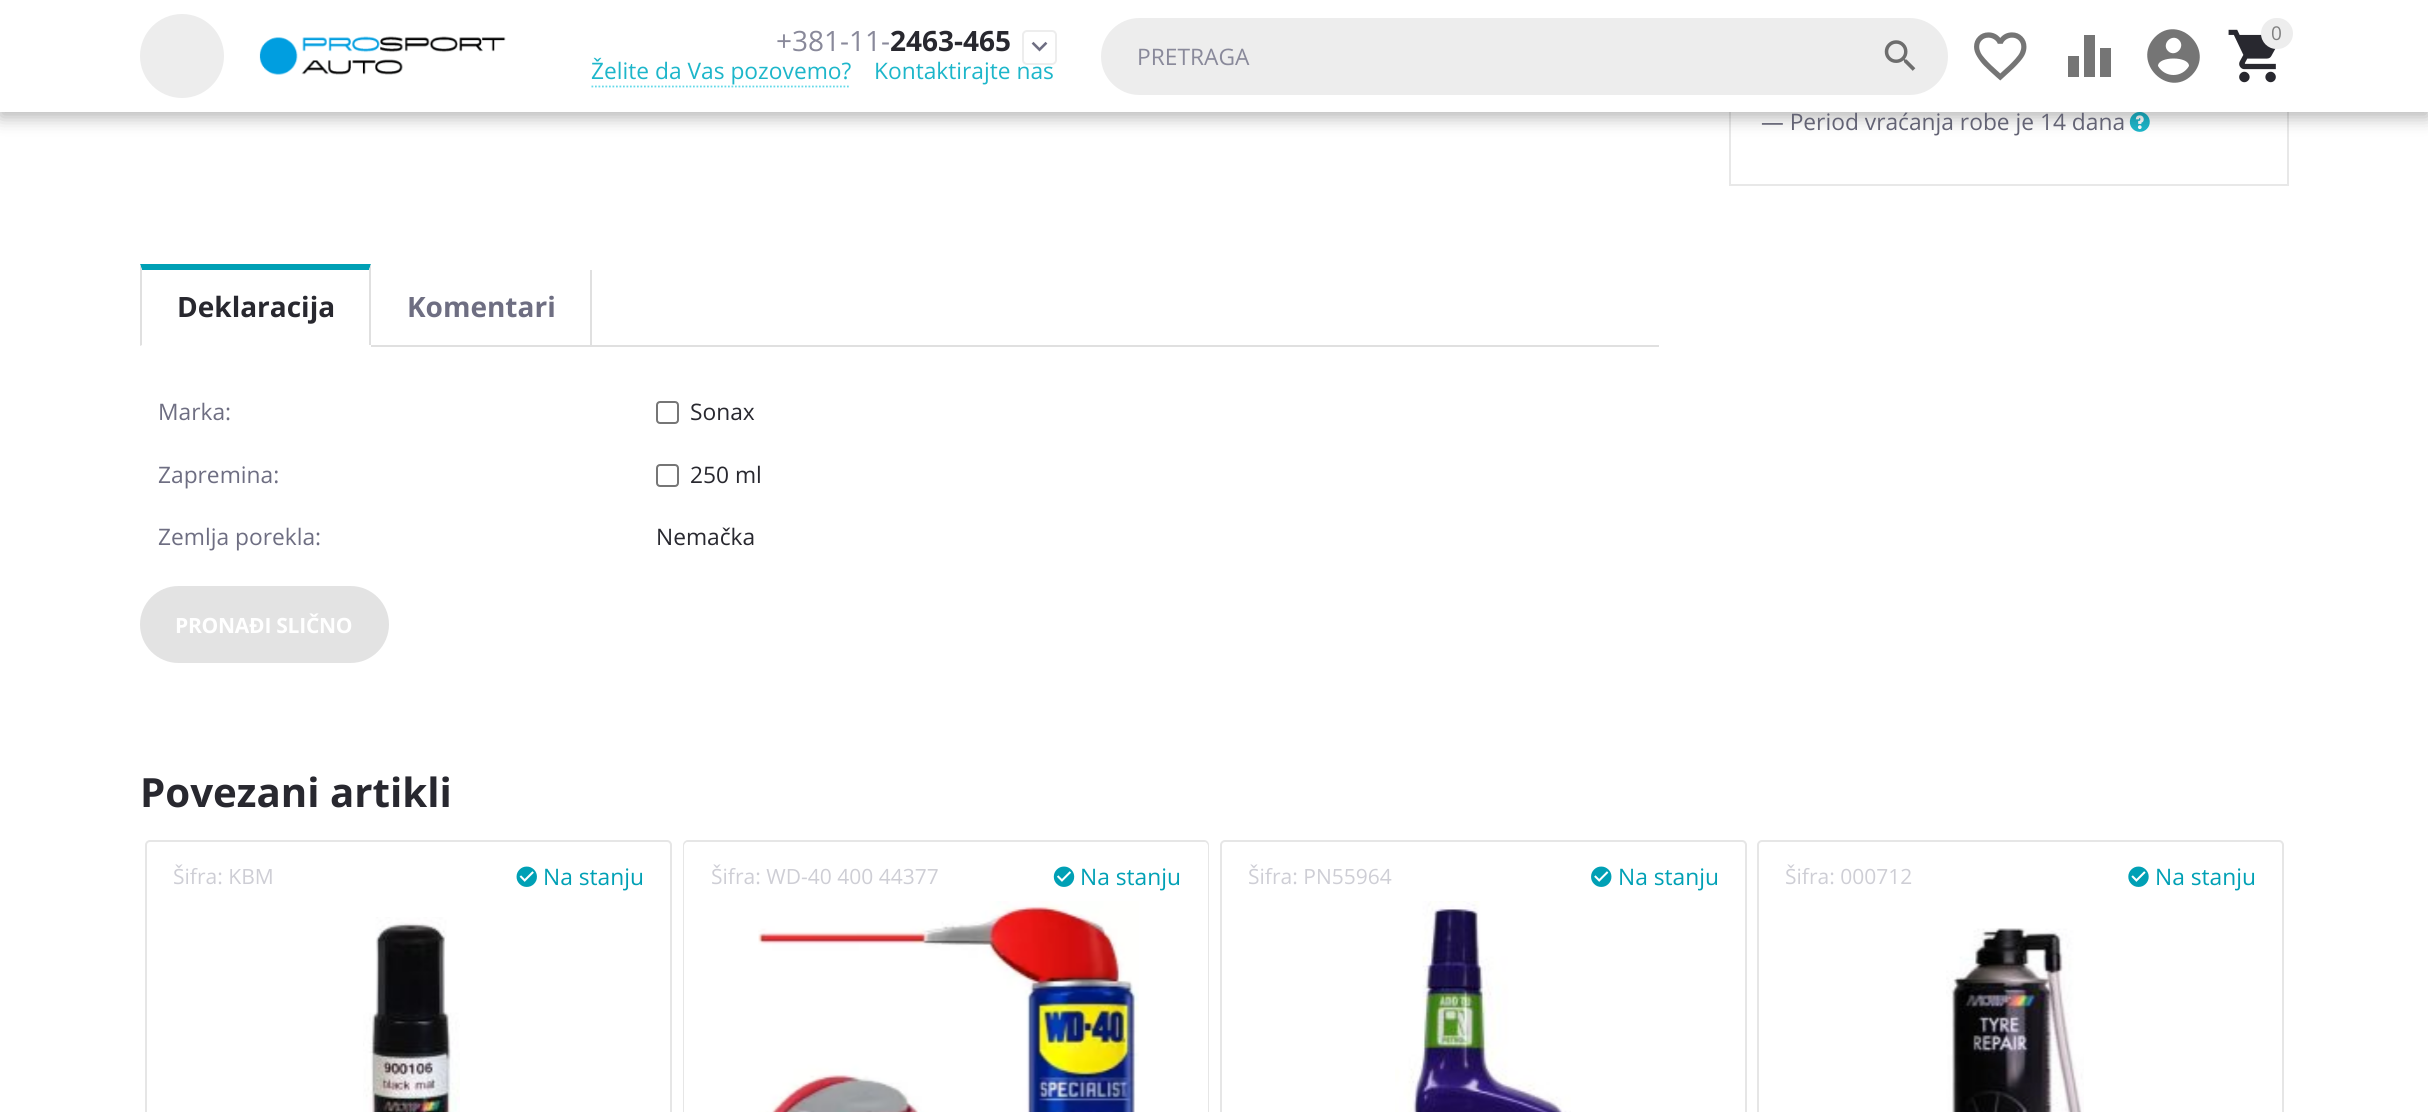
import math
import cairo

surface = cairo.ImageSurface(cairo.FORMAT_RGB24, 2428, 1112)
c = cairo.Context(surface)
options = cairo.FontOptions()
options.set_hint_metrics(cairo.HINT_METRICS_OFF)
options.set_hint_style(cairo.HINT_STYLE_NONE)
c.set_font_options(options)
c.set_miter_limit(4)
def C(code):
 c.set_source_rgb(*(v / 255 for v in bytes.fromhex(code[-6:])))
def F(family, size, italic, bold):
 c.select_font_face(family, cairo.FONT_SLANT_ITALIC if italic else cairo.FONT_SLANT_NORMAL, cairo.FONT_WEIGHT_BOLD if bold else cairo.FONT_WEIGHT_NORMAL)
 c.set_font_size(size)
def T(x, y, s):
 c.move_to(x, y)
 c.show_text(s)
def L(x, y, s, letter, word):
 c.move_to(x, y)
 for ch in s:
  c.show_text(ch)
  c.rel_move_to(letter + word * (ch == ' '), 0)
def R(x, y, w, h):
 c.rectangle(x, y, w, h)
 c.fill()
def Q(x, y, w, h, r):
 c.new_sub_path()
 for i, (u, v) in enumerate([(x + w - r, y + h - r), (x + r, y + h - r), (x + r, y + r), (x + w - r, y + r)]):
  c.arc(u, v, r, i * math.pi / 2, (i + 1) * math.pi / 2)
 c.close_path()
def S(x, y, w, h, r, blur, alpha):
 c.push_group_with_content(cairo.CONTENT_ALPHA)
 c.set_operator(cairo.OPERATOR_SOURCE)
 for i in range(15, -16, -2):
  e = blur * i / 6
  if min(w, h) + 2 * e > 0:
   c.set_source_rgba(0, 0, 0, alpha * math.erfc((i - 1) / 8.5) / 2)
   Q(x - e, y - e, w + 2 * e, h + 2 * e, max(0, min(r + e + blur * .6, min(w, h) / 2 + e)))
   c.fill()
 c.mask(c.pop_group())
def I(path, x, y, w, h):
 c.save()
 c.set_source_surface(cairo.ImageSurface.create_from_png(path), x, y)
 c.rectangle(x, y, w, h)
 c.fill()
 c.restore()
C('ffffff')
c.paint()
c.rectangle(1730,-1,558,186)
C('e8e8e8')
c.stroke()
I('6.png',2129,112,21,20)
C('000000')
S(0,5,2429,112,0,9,.3)
C('ffffff')
R(0,0,2428,112)
C('ededed')
c.arc(182,56,42,0,2 * math.pi)
c.fill()
I('1.png',259,36,247,39)
F('Open Sans',28,0,0)
C('89899a')
T(776,51,'+381-11-')
F('Open Sans',28,0,1)
C('28282f')
T(890,51,'2463-465')
F('Open Sans',22.75,0,0)
C('1db6ca')
T(874,79,'Kontaktirajte nas')
Q(1023,31,33,33,4)
C('ededed')
c.stroke()
I('2.png',1031,41,17,11)
C('1db6ca')
T(591,79,'Želite da Vas pozovemo?')
c.new_path()
c.move_to(591.5,86.5)
c.line_to(850.5,86.5)
C('64d9e9')
c.set_line_width(1.8)
c.set_dash([1.75,1.75])
c.stroke()
C('ededed')
Q(1102,19,845,75,37.5)
c.fill_preserve()
c.set_line_width(2)
c.set_dash([])
c.stroke()
C('89899a')
T(1137,65,'PRETRAGA')
I('3.png',1884,40,32,31)
I('4.png',1974,32,53,49)
C('757575')
c.new_path()
c.move_to(2100,48)
c.line_to(2111,48)
c.line_to(2111,77)
c.line_to(2100,77)
c.close_path()
c.move_to(2068,77)
c.line_to(2068,56)
c.line_to(2079,56)
c.line_to(2079,77)
c.close_path()
c.move_to(2084,77)
c.line_to(2084,35)
c.line_to(2095,35)
c.line_to(2095,77)
c.close_path()
c.fill()
c.new_path()
c.move_to(2158,66)
c.curve_to(2165,78,2182,78,2189,66)
c.curve_to(2189,56,2158,56,2158,66)
c.close_path()
c.move_to(2179,40)
c.curve_to(2172,33,2161,44,2168,51)
c.curve_to(2175,58,2186,47,2179,40)
c.close_path()
c.move_to(2155,37)
c.curve_to(2179,13,2216,50,2192,75)
c.curve_to(2168,99,2131,62,2155,37)
c.close_path()
c.fill()
I('5.png',2228,29,48,54)
C('ededed')
Q(2261,18,32,31,15.5)
c.fill()
F('Open Sans',19,0,0)
C('808080')
T(2271,40,'0')
F('Open Sans',22.75,0,0)
C('636374')
T(1761,130,'— Period vraćanja robe je 14 dana')
C('e0e0e0')
R(371,345,1288,2)
C('00a0b5')
c.new_path()
c.move_to(140,264)
c.line_to(371,264)
c.line_to(369,270)
c.line_to(142,270)
c.close_path()
c.fill()
C('e0e0e0')
c.new_path()
c.move_to(371,264)
c.line_to(371,346)
c.line_to(369,345)
c.line_to(369,270)
c.close_path()
c.fill()
C('ffffff')
R(369,345,2,1)
C('e0e0e0')
c.new_path()
c.move_to(140,346)
c.line_to(140,264)
c.line_to(142,270)
c.line_to(142,345)
c.close_path()
c.fill()
F('Open Sans',28,0,1)
C('28282f')
T(177,317,'Deklaracija')
C('e0e0e0')
R(590,270,2,75)
C('6e6e82')
T(407,317,'Komentari')
F('Open Sans',22.75,0,0)
T(158,420,'Marka:')
Q(657,402,21,21,3)
C('767676')
c.stroke()
C('28282f')
T(690,420,'Sonax')
C('6e6e82')
T(158,483,'Zapremina:')
Q(657,465,21,21,3)
C('767676')
c.stroke()
C('28282f')
T(690,483,'250 ml')
C('6e6e82')
T(158,545,'Zemlja porekla:')
C('28282f')
T(656,545,'Nemačka')
C('e3e3e3')
Q(140,586,249,77,38.5)
c.fill()
F('Open Sans',21,0,1)
C('ffffff')
L(175,633,'PRONAĐI SLIČNO',-.25,0)
F('Open Sans',40.25,0,1)
C('28282f')
T(140,807,'Povezani artikli')
Q(146,841,525,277,4)
C('e6e6e6')
c.stroke()
F('Open Sans',21,0,0)
C('ceced5')
T(173,884,'Šifra: KBM')
I('7.png',516,866,21,21)
F('Open Sans',22.75,0,0)
C('00a0b5')
T(543,885,'Na stanju')
I('8.png',363,917,97,195)
Q(684,841,524,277,4)
C('e6e6e6')
c.stroke()
C('ffffff')
Q(684,842,524,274,4)
c.fill()
F('Open Sans',21,0,0)
C('ceced5')
T(711,884,'Šifra: WD-40 400 44377')
I('9.png',1053,866,22,21)
F('Open Sans',22.75,0,0)
C('00a0b5')
T(1080,885,'Na stanju')
I('10.png',758,901,381,211)
Q(1221,841,525,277,4)
C('e6e6e6')
c.stroke()
F('Open Sans',21,0,0)
C('ceced5')
T(1248,884,'Šifra: PN55964')
I('11.png',1591,866,21,21)
F('Open Sans',22.75,0,0)
C('00a0b5')
T(1618,885,'Na stanju')
I('12.png',1395,901,176,211)
Q(1758,841,525,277,4)
C('e6e6e6')
c.stroke()
F('Open Sans',21,0,0)
C('ceced5')
T(1785,884,'Šifra: 000712')
I('13.png',2128,866,21,21)
F('Open Sans',22.75,0,0)
C('00a0b5')
T(2155,885,'Na stanju')
I('14.png',1946,928,138,184)
surface.write_to_png('o.png')
